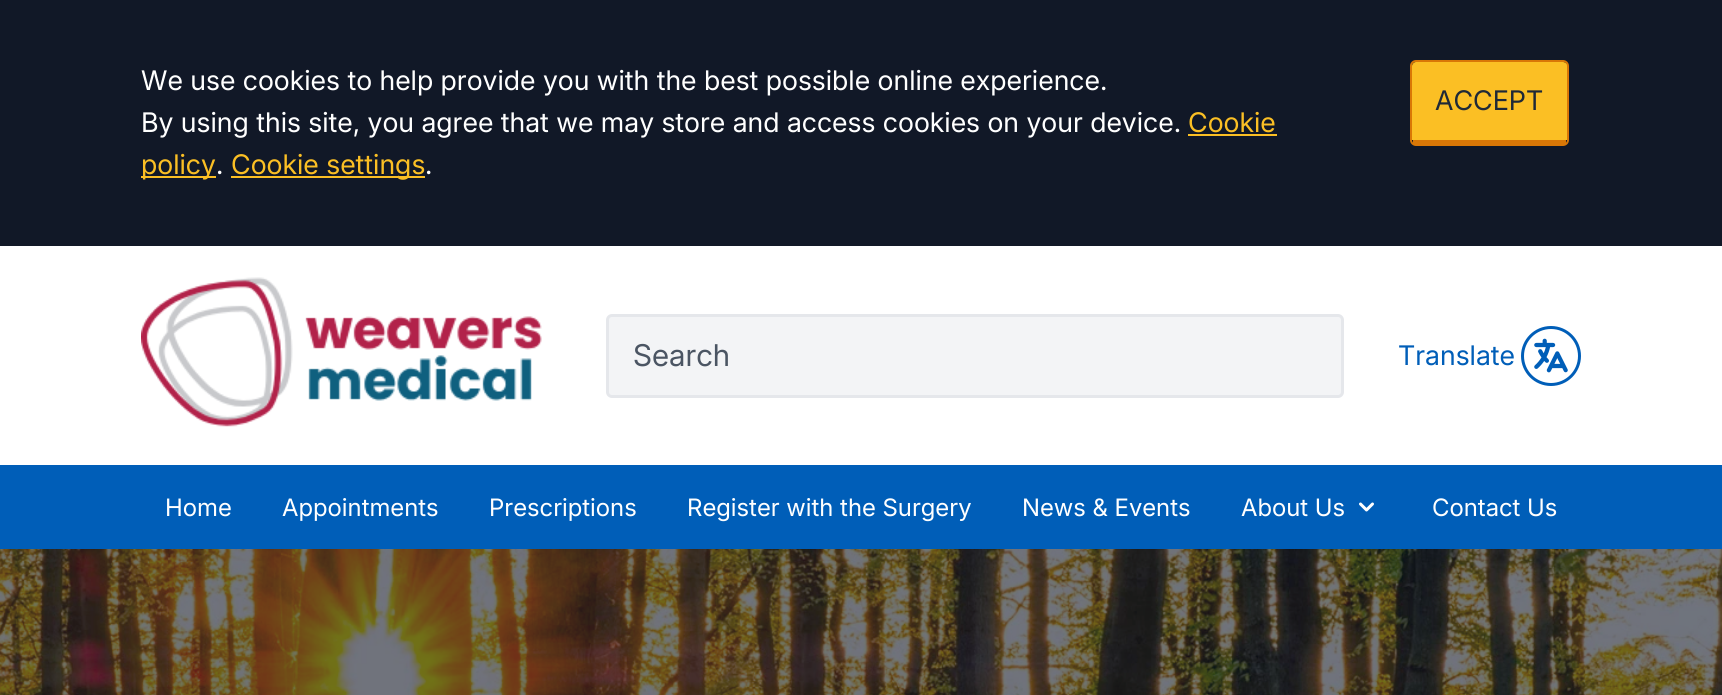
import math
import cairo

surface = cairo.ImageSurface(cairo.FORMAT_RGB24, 1722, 695)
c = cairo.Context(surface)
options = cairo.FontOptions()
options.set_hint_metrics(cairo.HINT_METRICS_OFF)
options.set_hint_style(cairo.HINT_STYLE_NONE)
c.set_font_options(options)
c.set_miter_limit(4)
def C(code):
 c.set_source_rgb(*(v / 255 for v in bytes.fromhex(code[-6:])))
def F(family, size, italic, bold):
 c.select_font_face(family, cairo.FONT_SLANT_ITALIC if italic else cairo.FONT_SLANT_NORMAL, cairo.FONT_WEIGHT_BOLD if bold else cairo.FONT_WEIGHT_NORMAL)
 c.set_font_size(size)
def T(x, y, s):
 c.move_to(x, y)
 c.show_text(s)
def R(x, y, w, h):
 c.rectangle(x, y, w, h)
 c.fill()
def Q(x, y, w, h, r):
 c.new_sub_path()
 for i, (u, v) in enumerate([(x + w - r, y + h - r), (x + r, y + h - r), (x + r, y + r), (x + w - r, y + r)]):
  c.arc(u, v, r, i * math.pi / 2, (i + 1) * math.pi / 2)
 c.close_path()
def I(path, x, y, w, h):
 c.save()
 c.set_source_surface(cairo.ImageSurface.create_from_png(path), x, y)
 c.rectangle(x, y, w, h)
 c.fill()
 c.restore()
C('111827')
c.paint()
F('Inter',27,0,0)
C('ffffff')
T(141,90,'We use cookies to help provide you with the best possible online experience.')
T(141,132,'By using this site, you agree that we may store and access cookies on your device.')
C('fbbf24')
T(1188,132,'Cookie')
R(1188,134,89,2)
R(141,176,75,2)
T(141,174,'policy')
C('ffffff')
T(216,174,'.')
C('fbbf24')
R(231,176,194,2)
T(231,174,'Cookie settings')
C('ffffff')
T(425,174,'.')
C('fbbf24')
c.new_path()
c.move_to(1416,62)
c.line_to(1563,62)
c.curve_to(1565,62,1568,64,1568,66)
c.line_to(1568,140)
c.line_to(1412,140)
c.line_to(1412,66)
c.curve_to(1412,64,1414,62,1416,62)
c.close_path()
c.fill()
Q(1411,61,157,84,5)
C('d97706')
c.stroke()
R(1413,140,153,4)
C('1f2937')
T(1435,110,'ACCEPT')
C('ffffff')
R(0,246,1722,219)
I('1.png',141,277,401,150)
C('f3f4f6')
Q(607.5,315.5,735,81,4.5)
c.fill_preserve()
C('e5e7eb')
c.set_line_width(3)
c.stroke()
F('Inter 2',30,0,0)
C('4b5563')
T(633,366,'Search')
F('Inter',27,0,0)
C('005eb8')
T(1398,365,'Translate')
c.new_path()
c.arc(1551,356,28.5,0,2 * math.pi)
c.stroke()
I('2.png',1534,338,34,35)
R(0,465,1722,84)
F('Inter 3',24,0,0)
C('ffffff')
T(165,516,'Home')
T(282,516,'Appointments')
T(489,516,'Prescriptions')
T(687,516,'Register with the Surgery')
T(1022,516,'News & Events')
T(1241,516,'About Us')
I('3.png',1359,502,15,10)
T(1432,516,'Contact Us')
I('4.png',0,549,1722,146)
surface.write_to_png('o.png')
